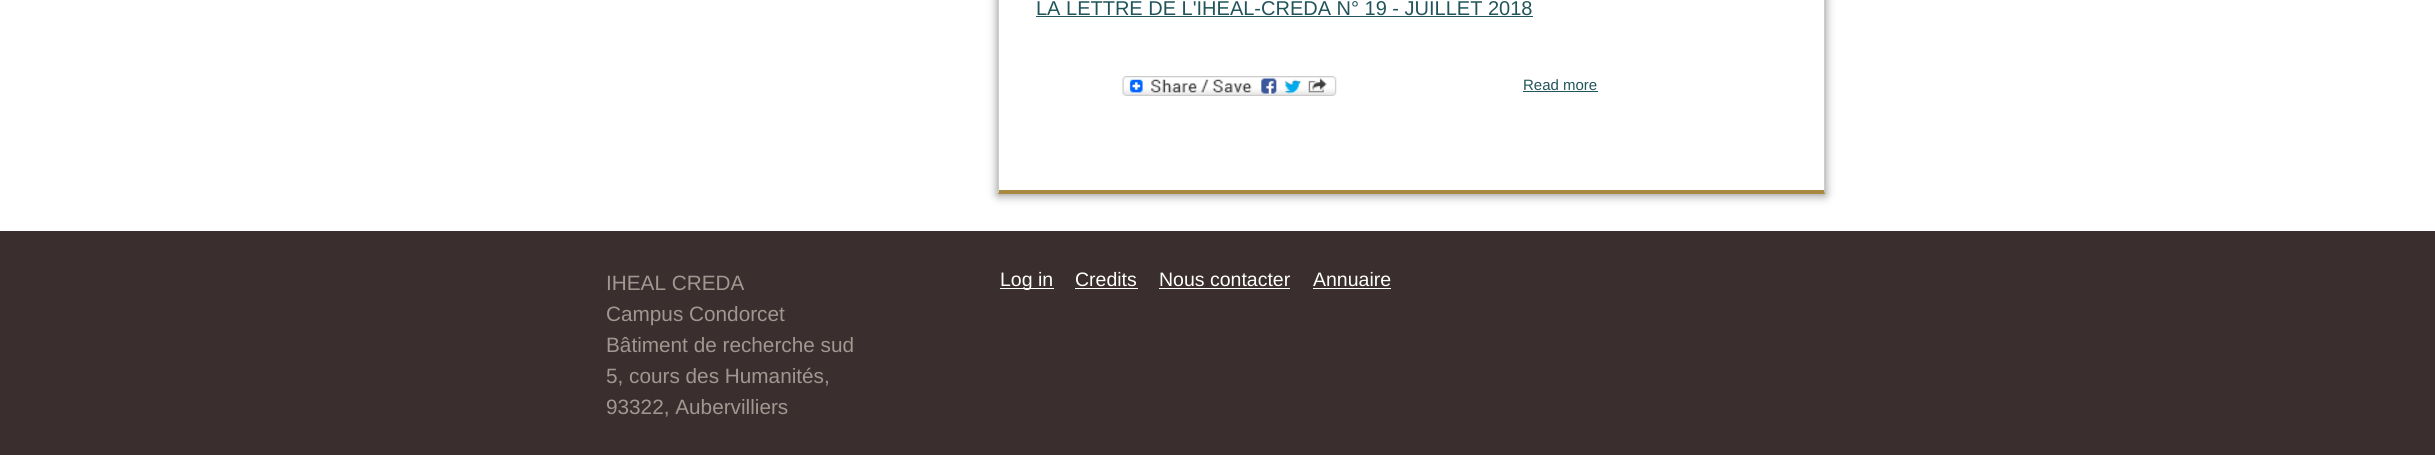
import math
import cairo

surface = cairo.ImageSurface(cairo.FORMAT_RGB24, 2435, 455)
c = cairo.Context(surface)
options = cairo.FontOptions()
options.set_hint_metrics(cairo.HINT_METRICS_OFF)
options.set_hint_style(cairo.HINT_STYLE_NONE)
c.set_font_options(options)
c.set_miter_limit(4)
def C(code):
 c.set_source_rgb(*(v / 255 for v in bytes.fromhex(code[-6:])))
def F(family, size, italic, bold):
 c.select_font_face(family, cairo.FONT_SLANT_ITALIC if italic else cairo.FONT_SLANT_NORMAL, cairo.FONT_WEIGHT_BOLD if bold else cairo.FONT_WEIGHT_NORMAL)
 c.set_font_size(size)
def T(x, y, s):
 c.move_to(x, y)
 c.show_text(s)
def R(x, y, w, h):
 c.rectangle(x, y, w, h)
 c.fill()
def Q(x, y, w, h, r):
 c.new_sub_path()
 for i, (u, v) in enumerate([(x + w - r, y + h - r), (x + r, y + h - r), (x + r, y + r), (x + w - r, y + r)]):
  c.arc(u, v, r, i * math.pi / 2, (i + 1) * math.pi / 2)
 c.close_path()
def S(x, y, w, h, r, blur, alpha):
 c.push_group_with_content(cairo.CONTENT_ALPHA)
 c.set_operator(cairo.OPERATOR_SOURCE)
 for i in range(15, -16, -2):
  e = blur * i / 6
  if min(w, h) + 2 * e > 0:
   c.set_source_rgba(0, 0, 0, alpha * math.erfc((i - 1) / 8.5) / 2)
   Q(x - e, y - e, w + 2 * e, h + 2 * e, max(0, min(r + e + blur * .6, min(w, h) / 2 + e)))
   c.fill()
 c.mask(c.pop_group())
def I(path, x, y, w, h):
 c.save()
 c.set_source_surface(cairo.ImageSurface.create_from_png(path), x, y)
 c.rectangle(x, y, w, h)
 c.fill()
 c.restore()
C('ffffff')
c.paint()
c.save()
c.set_fill_rule(cairo.FILL_RULE_EVEN_ODD)
c.new_path()
c.move_to(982,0)
c.line_to(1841,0)
c.line_to(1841,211)
c.line_to(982,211)
c.close_path()
c.move_to(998,-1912)
c.line_to(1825,-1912)
c.line_to(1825,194)
c.line_to(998,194)
c.close_path()
c.clip()
C('888888')
S(998,-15,827,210,0,5,1)
c.restore()
C('cccccc')
c.new_path()
c.move_to(1825,-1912)
c.line_to(1825,194)
c.line_to(1824,190)
c.line_to(1824,-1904)
c.close_path()
c.fill()
C('a88942')
c.new_path()
c.move_to(1825,194)
c.line_to(998,194)
c.line_to(999,190)
c.line_to(1824,190)
c.close_path()
c.fill()
C('cccccc')
c.new_path()
c.move_to(998,194)
c.line_to(998,-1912)
c.line_to(999,-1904)
c.line_to(999,190)
c.close_path()
c.fill()
F('Liberation Sans',20,0,0)
C('22555b')
T(1036,15,'LA LETTRE DE L\'IHEAL-CREDA N° 19 - JUILLET 2018')
R(1036,16,497,1)
I('1.png',1122,76,215,20)
F('Liberation Sans',15,0,0)
T(1523,90,'Read more')
R(1523,91,75,1)
C('3a2e2e')
R(0,231,2435,224)
F('Liberation Sans',20.75,0,0)
C('a19790')
T(606,290,'IHEAL CREDA')
T(606,321,'Campus Condorcet')
T(606,352,'Bâtiment de recherche sud')
T(606,383,'5, cours des Humanités,')
T(606,414,'93322, Aubervilliers')
C('ffffff')
R(1000,288,54,1)
F('Liberation Sans',19.5,0,0)
T(1000,286,'Log in')
T(1075,286,'Credits')
R(1075,288,63,1)
T(1159,286,'Nous contacter')
R(1159,288,131,1)
T(1313,286,'Annuaire')
R(1313,288,78,1)
surface.write_to_png('o.png')
